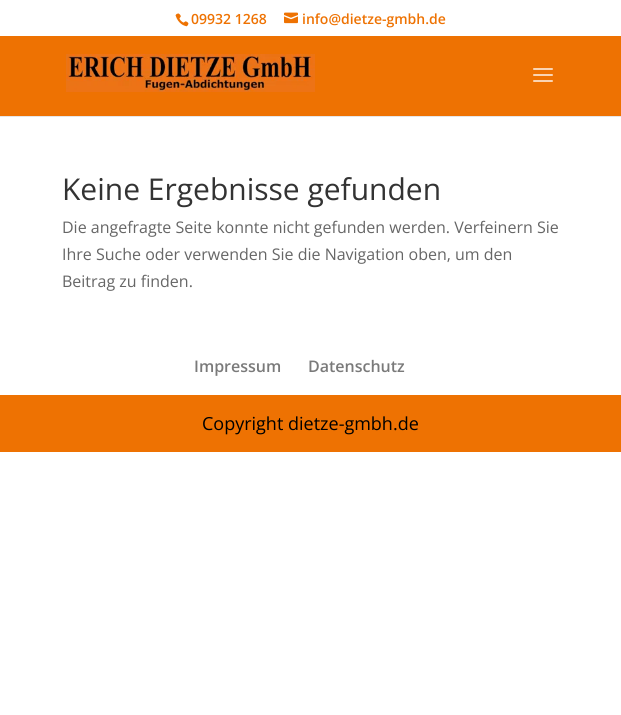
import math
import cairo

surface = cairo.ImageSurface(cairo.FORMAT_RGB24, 621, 715)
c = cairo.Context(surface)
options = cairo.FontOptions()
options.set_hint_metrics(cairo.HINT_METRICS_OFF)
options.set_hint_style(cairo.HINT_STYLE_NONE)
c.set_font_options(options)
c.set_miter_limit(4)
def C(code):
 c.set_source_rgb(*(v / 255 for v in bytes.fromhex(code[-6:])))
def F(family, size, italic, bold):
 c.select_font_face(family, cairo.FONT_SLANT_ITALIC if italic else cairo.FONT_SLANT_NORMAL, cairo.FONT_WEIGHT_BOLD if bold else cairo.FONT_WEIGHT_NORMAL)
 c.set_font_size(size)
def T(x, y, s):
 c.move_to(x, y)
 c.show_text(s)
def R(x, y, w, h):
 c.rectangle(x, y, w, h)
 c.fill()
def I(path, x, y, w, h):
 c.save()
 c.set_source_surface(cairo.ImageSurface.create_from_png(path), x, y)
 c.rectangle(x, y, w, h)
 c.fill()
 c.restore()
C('ffffff')
c.paint()
I('1.png',175,13,14,14)
F('Open Sans SemiBold',14,0,0)
C('ee7202')
T(191,24,'09932 1268')
I('2.png',284,12,14,12)
T(302,24,'info@dietze-gmbh.de')
C('e6e6e6')
R(0,116,621,1)
C('ee7202')
R(0,36,621,80)
I('3.png',66,54,249,38)
I('4.png',533,68,20,14)
F('Open Sans',30,0,0)
C('333333')
T(62,200,'Keine Ergebnisse gefunden')
F('Open Sans',16,0,0)
C('666666')
T(62,233,'Die angefragte Seite konnte nicht gefunden werden. Verfeinern Sie')
T(62,260,'Ihre Suche oder verwenden Sie die Navigation oben, um den')
T(62,287,'Beitrag zu finden.')
F('Open Sans SemiBold',16,0,0)
C('7a7a7a')
T(194,372,'Impressum')
T(308,372,'Datenschutz')
C('ee7202')
R(0,395,621,57)
F('Open Sans',18,0,0)
C('000000')
T(202,430,'Copyright dietze-gmbh.de')
surface.write_to_png('o.png')
